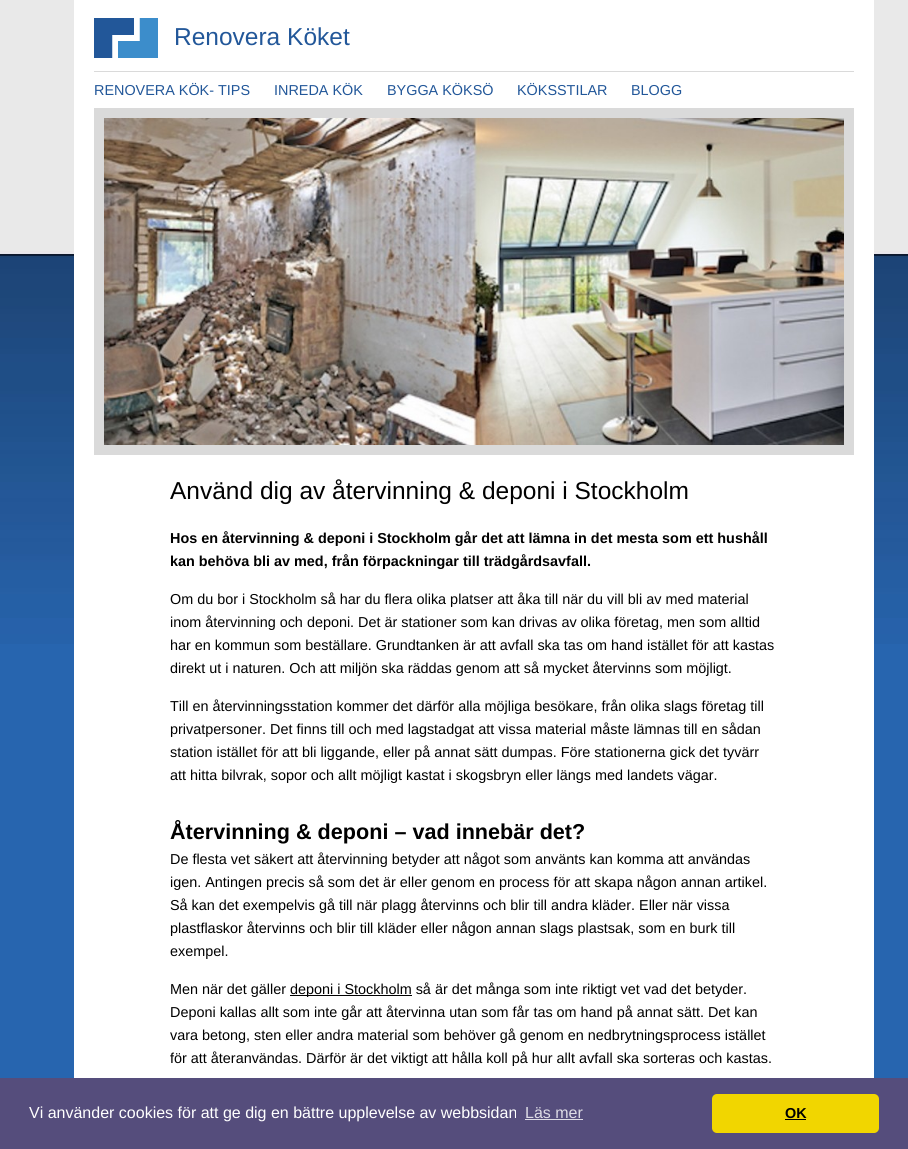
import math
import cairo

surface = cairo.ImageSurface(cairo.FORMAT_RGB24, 908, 1149)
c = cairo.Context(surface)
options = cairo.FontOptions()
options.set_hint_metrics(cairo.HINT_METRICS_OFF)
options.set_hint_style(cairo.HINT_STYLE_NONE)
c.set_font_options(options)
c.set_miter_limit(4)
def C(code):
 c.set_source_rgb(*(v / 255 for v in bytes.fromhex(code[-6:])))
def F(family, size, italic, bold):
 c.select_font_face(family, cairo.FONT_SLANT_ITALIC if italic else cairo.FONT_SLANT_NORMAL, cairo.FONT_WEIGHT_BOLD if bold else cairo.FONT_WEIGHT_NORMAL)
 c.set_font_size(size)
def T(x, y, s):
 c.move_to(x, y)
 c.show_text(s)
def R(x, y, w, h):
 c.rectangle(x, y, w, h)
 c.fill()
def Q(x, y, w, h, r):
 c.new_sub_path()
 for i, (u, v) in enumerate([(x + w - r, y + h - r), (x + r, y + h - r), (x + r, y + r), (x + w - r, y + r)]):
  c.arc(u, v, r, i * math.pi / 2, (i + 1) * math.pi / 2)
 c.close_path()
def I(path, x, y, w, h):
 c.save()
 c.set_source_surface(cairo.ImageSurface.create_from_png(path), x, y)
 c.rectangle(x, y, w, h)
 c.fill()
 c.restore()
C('2765af')
c.paint()
I('1.png',0,0,908,644)
C('ffffff')
R(74,0,800,1078)
I('2.png',94,18,64,40)
C('dadada')
R(94,71,760,1)
F('Liberation Sans',24.5,0,0)
C('225799')
T(174,45,'Renovera Köket')
F('Liberation Sans',14.4,0,0)
T(94,95,'RENOVERA KÖK- TIPS')
T(274,95,'INREDA KÖK')
T(387,95,'BYGGA KÖKSÖ')
T(517,95,'KÖKSSTILAR')
T(631,95,'BLOGG')
C('dadada')
R(94,108,760,347)
I('3.png',104,118,740,327)
F('Liberation Sans',24.5,0,0)
C('000000')
T(170,499,'Använd dig av återvinning & deponi i Stockholm')
F('Liberation Sans',14.4,0,1)
T(170,543,'Hos en återvinning & deponi i Stockholm går det att lämna in det mesta som ett hushåll')
T(170,566,'kan behöva bli av med, från förpackningar till trädgårdsavfall.')
F('Liberation Sans',14.4,0,0)
T(170,604,'Om du bor i Stockholm så har du flera olika platser att åka till när du vill bli av med material')
T(170,627,'inom återvinning och deponi. Det är stationer som kan drivas av olika företag, men som alltid')
T(170,650,'har en kommun som beställare. Grundtanken är att avfall ska tas om hand istället för att kastas')
T(170,673,'direkt ut i naturen. Och att miljön ska räddas genom att så mycket återvinns som möjligt.')
T(170,711,'Till en återvinningsstation kommer det därför alla möjliga besökare, från olika slags företag till')
T(170,734,'privatpersoner. Det finns till och med lagstadgat att vissa material måste lämnas till en sådan')
T(170,757,'station istället för att bli liggande, eller på annat sätt dumpas. Före stationerna gick det tyvärr')
T(170,780,'att hitta bilvrak, sopor och allt möjligt kastat i skogsbryn eller längs med landets vägar.')
F('Liberation Sans',21.6,0,1)
T(170,839,'Återvinning & deponi – vad innebär det?')
F('Liberation Sans',14.4,0,0)
T(170,864,'De flesta vet säkert att återvinning betyder att något som använts kan komma att användas')
T(170,887,'igen. Antingen precis så som det är eller genom en process för att skapa någon annan artikel.')
T(170,910,'Så kan det exempelvis gå till när plagg återvinns och blir till andra kläder. Eller när vissa')
T(170,933,'plastflaskor återvinns och blir till kläder eller någon annan slags plastsak, som en burk till')
T(170,956,'exempel.')
T(170,994,'Men när det gäller')
R(290,995,122,1)
T(290,994,'deponi i Stockholm så är det många som inte riktigt vet vad det betyder.')
T(170,1017,'Deponi kallas allt som inte går att återvinna utan som får tas om hand på annat sätt. Det kan')
T(170,1040,'vara betong, sten eller andra material som behöver gå genom en nedbrytningsprocess istället')
T(170,1063,'för att återanvändas. Därför är det viktigt att hålla koll på hur allt avfall ska sorteras och kastas.')
C('554d7c')
R(0,1078,908,71)
F('Liberation Sans',16,0,0)
C('ffffff')
T(29,1118,'Vi använder cookies för att ge dig en bättre upplevelse av webbsidan')
C('dddbe5')
T(525,1118,'Läs mer')
R(525,1119,58,1)
C('f1d600')
Q(712,1094,167,39,5)
c.fill()
F('Liberation Sans',14.4,0,1)
C('000000')
T(785,1118,'OK')
R(785,1119,21,1)
surface.write_to_png('o.png')
